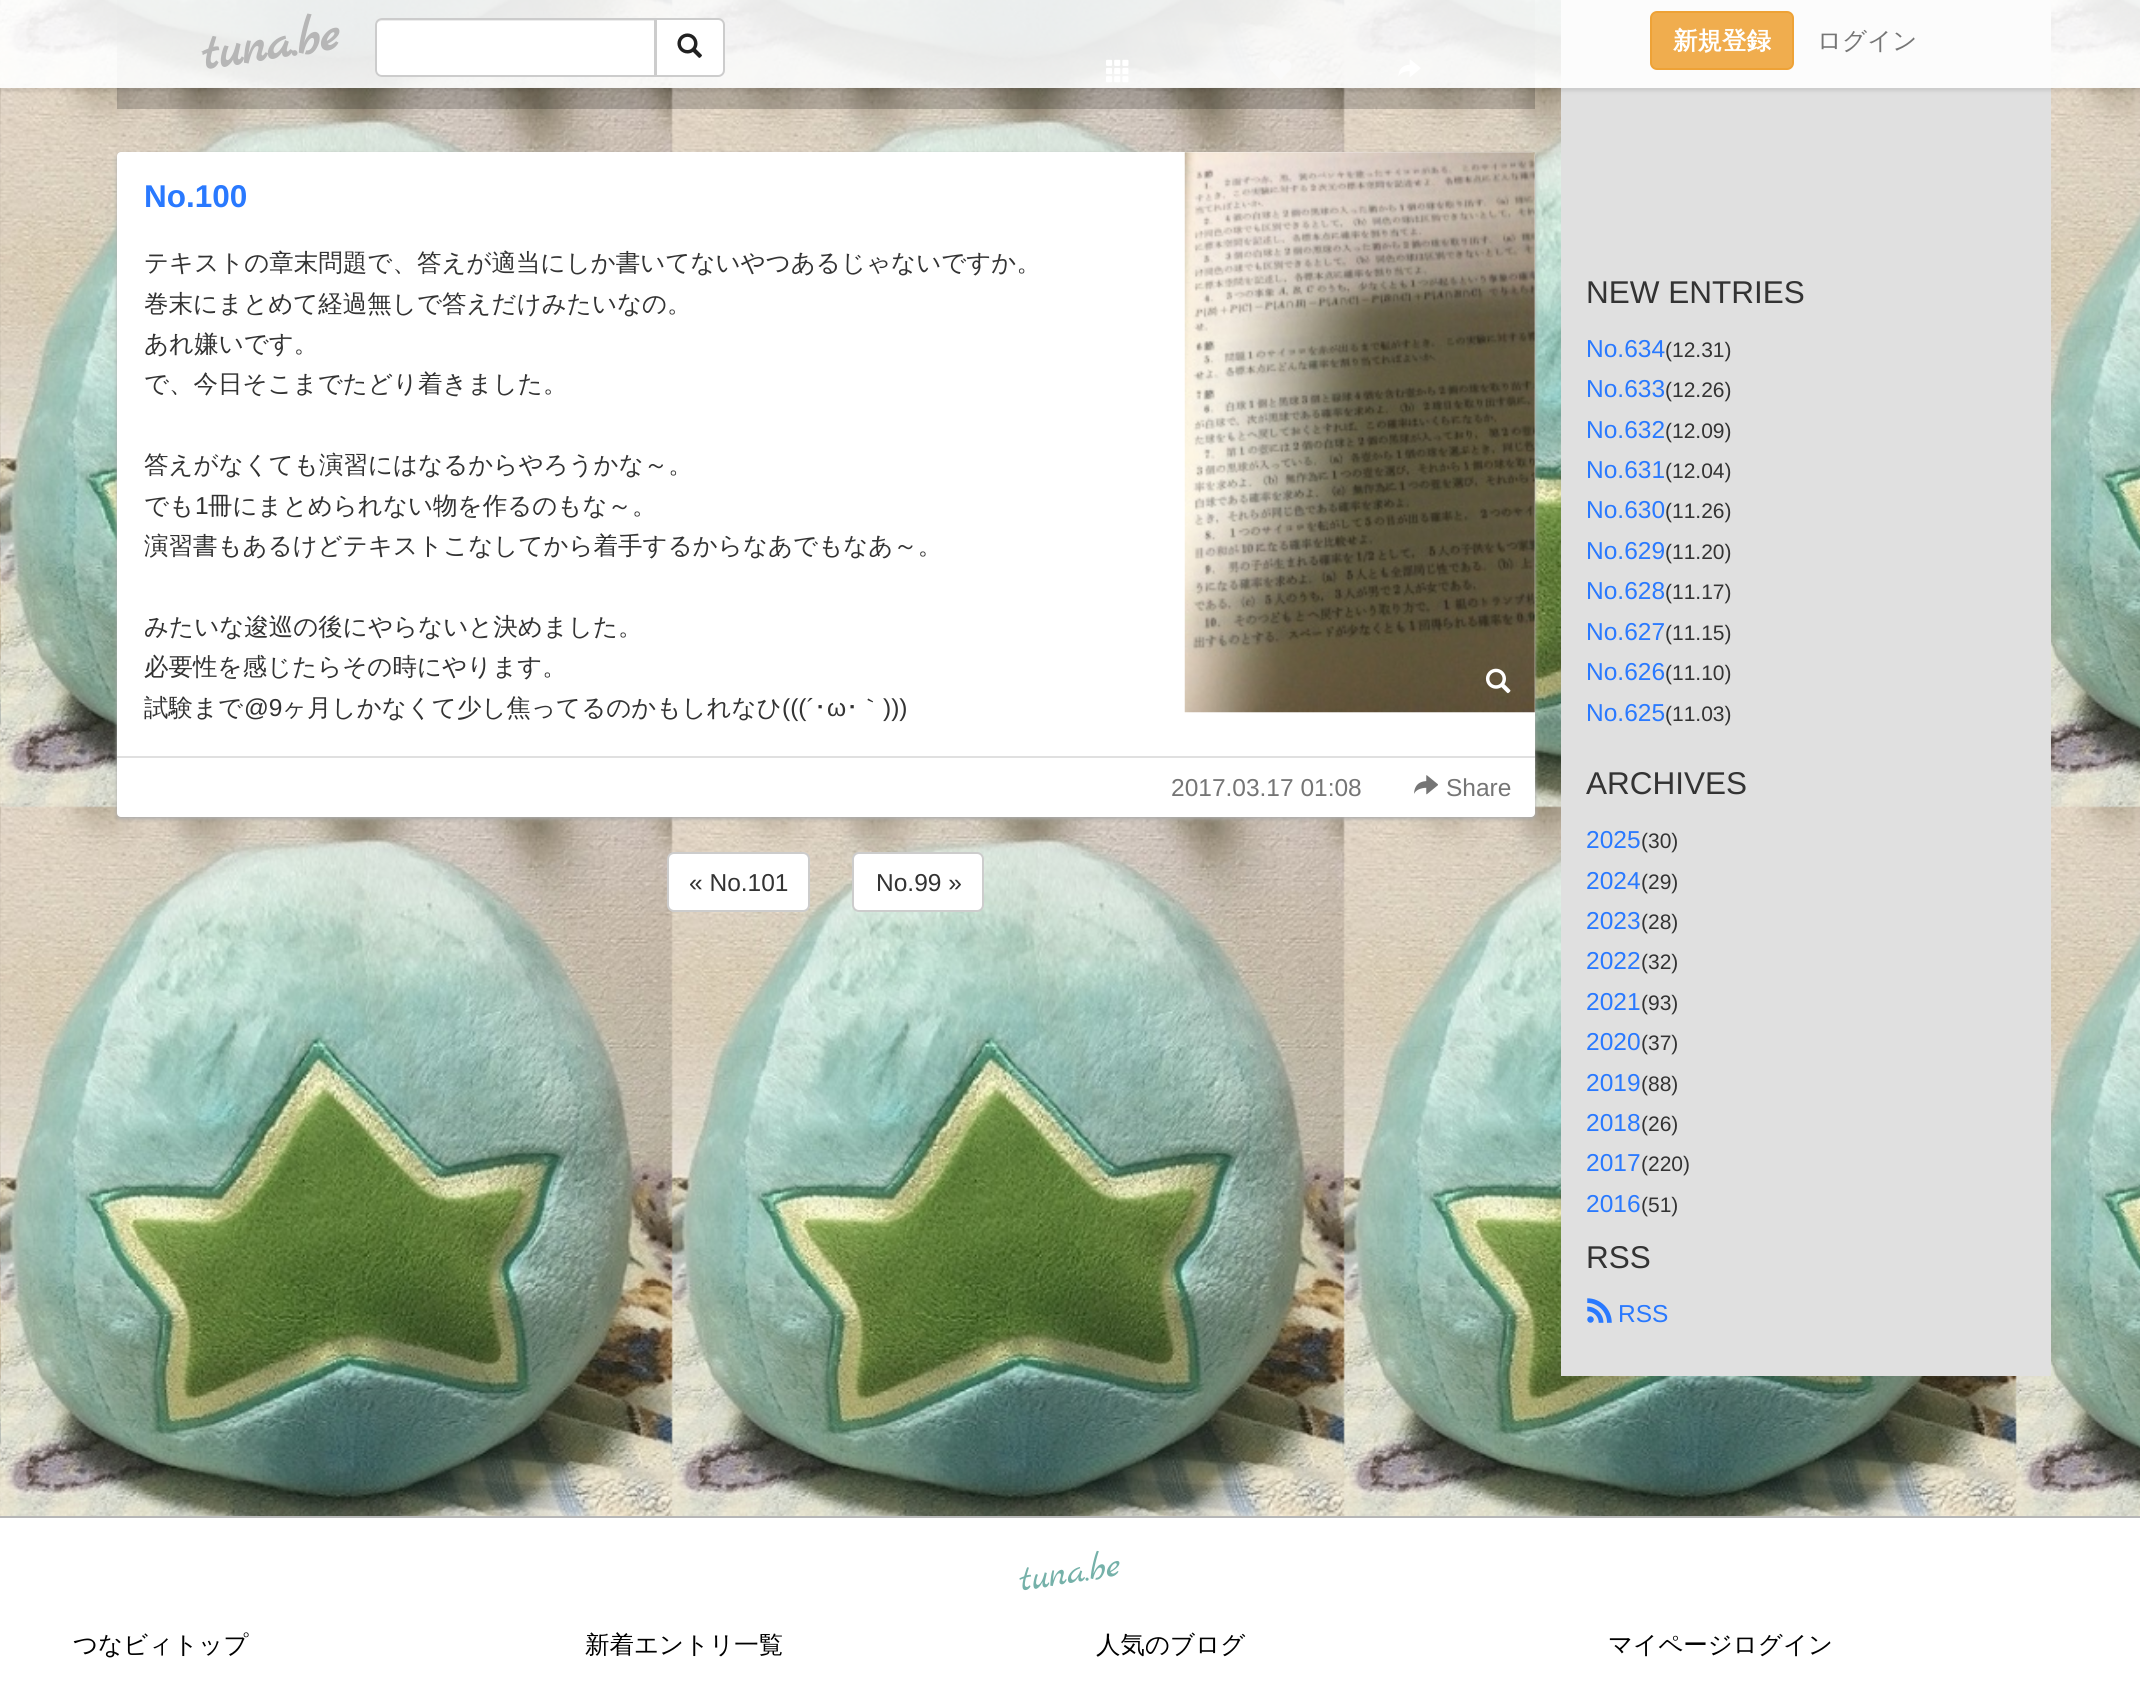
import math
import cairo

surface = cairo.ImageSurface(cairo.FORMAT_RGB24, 2140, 1703)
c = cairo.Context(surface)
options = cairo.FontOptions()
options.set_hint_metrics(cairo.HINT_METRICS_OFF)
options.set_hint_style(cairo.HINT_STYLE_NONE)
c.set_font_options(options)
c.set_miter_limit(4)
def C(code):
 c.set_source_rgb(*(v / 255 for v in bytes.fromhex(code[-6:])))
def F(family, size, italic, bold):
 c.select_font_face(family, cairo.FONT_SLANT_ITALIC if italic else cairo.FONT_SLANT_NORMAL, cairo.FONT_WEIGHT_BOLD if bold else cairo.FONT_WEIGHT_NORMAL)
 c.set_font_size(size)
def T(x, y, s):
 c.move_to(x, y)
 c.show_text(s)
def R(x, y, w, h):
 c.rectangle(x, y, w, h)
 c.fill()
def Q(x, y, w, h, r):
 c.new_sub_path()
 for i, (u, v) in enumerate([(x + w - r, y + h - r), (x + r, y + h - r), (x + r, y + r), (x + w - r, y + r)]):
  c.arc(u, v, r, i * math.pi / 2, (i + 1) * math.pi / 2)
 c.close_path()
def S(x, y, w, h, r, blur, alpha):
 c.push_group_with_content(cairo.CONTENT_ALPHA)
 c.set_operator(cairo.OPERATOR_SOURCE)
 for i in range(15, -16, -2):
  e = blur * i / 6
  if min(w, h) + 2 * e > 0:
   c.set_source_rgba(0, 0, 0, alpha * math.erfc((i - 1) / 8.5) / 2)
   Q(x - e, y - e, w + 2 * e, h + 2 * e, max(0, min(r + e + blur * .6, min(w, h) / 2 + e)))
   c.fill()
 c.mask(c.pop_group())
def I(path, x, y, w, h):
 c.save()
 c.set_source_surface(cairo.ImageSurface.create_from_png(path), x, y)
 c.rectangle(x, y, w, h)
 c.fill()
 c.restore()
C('ffffff')
c.paint()
I('1.png',0,0,2140,1516)
c.set_source_rgba(0,0,0,0.2)
R(117,0,1418,109)
I('3.png',1106,59,23,24)
I('4.png',1269,60,23,21)
I('5.png',1398,59,23,18)
C('e0e0e0')
R(1561,0,490,1376)
c.save()
c.set_fill_rule(cairo.FILL_RULE_EVEN_ODD)
c.new_path()
c.move_to(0,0)
c.line_to(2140,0)
c.line_to(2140,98)
c.line_to(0,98)
c.close_path()
c.move_to(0,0)
c.line_to(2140,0)
c.line_to(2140,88)
c.line_to(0,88)
c.close_path()
c.clip()
C('000000')
S(0,4,2140,87,0,2,.1)
c.restore()
c.set_source_rgba(1,1,1,0.9)
R(0,0,2140,88)
F('Marck Script',52.5,0,1)
C('b6b6b6')
c.save()
c.translate(204,70)
c.rotate(-9 * math.pi / 180)
T(0,0,'tuna.be')
c.restore()
C('ffffff')
c.new_path()
c.move_to(382,18)
c.line_to(656,18)
c.line_to(656,77)
c.line_to(382,77)
c.curve_to(378,77,375,74,375,70)
c.line_to(375,25)
c.curve_to(375,21,378,18,382,18)
c.close_path()
c.fill()
C('ececec')
c.new_path()
c.move_to(382,21)
c.line_to(654,21)
c.line_to(654,75)
c.line_to(655,75)
c.line_to(655,19)
c.line_to(380,19)
c.curve_to(376,20,376,23,376,26)
c.curve_to(376,23,379,21,382,21)
c.close_path()
c.fill()
c.new_path()
c.move_to(382,19)
c.line_to(655,19)
c.line_to(655,76)
c.line_to(382,76)
c.curve_to(378.5,76,376,73.5,376,70)
c.line_to(376,25)
c.curve_to(376,21.5,378.5,19,382,19)
c.close_path()
C('cccccc')
c.stroke()
C('ffffff')
c.new_path()
c.move_to(656,19)
c.line_to(718,19)
c.curve_to(721.5,19,724,21.5,724,25)
c.line_to(724,70)
c.curve_to(724,73.5,721.5,76,718,76)
c.line_to(656,76)
c.close_path()
c.fill_preserve()
C('cccccc')
c.stroke()
I('2.png',677,33,25,25)
C('f0ad4e')
Q(1651,12,142,57,6)
c.fill_preserve()
C('eea236')
c.stroke()
F('WenQuanYi Zen Hei',24.5,0,1)
C('ffffff')
T(1673,49,'新規登録')
F('WenQuanYi Zen Hei Medium',24.5,0,0)
C('757575')
T(1817,49,'ログイン')
C('aaaaaa')
S(117,154,1418,665,4,2,1)
C('ffffff')
Q(117,152,1418,665,4)
c.fill()
F('Liberation Sans',31.5,0,1)
C('2979ff')
T(144,207,'No.100')
I('6.png',1184,152,351,561)
I('7.png',1485,668,26,26)
F('WenQuanYi Zen Hei Medium',24.5,0,0)
C('333333')
T(144,271,'テキストの章末問題で、答えが適当にしか書いてないやつあるじゃないですか。')
T(144,312,'巻末にまとめて経過無しで答えだけみたいなの。')
T(144,352,'あれ嫌いです。')
T(144,392,'で、今日そこまでたどり着きました。')
T(144,473,'答えがなくても演習にはなるからやろうかな～。')
T(144,514,'でも')
F('Liberation Sans',24.5,0,0)
T(195,514,'1')
F('WenQuanYi Zen Hei Medium',24.5,0,0)
T(208,514,'冊にまとめられない物を作るのもな～。')
T(144,554,'演習書もあるけどテキストこなしてから着手するからなあでもなあ～。')
T(144,635,'みたいな逡巡の後にやらないと決めました。')
T(144,675,'必要性を感じたらその時にやります。')
T(144,716,'試験まで')
F('Liberation Sans',24.5,0,0)
T(244,716,'@9')
F('WenQuanYi Zen Hei Medium',24.5,0,0)
T(282,716,'ヶ月しかなくて少し焦ってるのかもしれなひ')
F('Liberation Sans',24.5,0,0)
T(782,716,'(((´')
F('IPAPGothic',24.5,0,0)
T(814,716,'･')
F('Liberation Sans',24.5,0,0)
T(827,716,'ω')
F('IPAPGothic',24.5,0,0)
T(846,716,'･')
F('WenQuanYi Zen Hei Medium',24.5,0,0)
T(858,716,'｀')
F('Liberation Sans',24.5,0,0)
T(883,716,')))')
C('e0e0e0')
R(117,756,1418,2)
C('757575')
T(1171,796,'2017.03.17 01:08')
I('8.png',1414,775,24,20)
T(1446,796,'Share')
C('ffffff')
Q(668,853,141,58,6)
c.fill_preserve()
C('cccccc')
c.stroke()
C('333333')
T(689,891,'« No.101')
C('ffffff')
Q(853,853,130,58,6)
c.fill_preserve()
C('cccccc')
c.stroke()
C('333333')
T(876,891,'No.99 »')
F('Liberation Sans',31.5,0,0)
T(1586,303,'NEW ENTRIES')
F('Liberation Sans',24.5,0,0)
C('2979ff')
T(1586,357,'No.634')
F('Liberation Sans',21,0,0)
C('333333')
T(1665,357,'(12.31)')
F('Liberation Sans',24.5,0,0)
C('2979ff')
T(1586,397,'No.633')
F('Liberation Sans',21,0,0)
C('333333')
T(1665,397,'(12.26)')
F('Liberation Sans',24.5,0,0)
C('2979ff')
T(1586,438,'No.632')
F('Liberation Sans',21,0,0)
C('333333')
T(1665,438,'(12.09)')
F('Liberation Sans',24.5,0,0)
C('2979ff')
T(1586,478,'No.631')
F('Liberation Sans',21,0,0)
C('333333')
T(1665,478,'(12.04)')
F('Liberation Sans',24.5,0,0)
C('2979ff')
T(1586,518,'No.630')
F('Liberation Sans',21,0,0)
C('333333')
T(1665,518,'(11.26)')
F('Liberation Sans',24.5,0,0)
C('2979ff')
T(1586,559,'No.629')
F('Liberation Sans',21,0,0)
C('333333')
T(1665,559,'(11.20)')
F('Liberation Sans',24.5,0,0)
C('2979ff')
T(1586,599,'No.628')
F('Liberation Sans',21,0,0)
C('333333')
T(1665,599,'(11.17)')
F('Liberation Sans',24.5,0,0)
C('2979ff')
T(1586,640,'No.627')
F('Liberation Sans',21,0,0)
C('333333')
T(1665,640,'(11.15)')
F('Liberation Sans',24.5,0,0)
C('2979ff')
T(1586,680,'No.626')
F('Liberation Sans',21,0,0)
C('333333')
T(1665,680,'(11.10)')
F('Liberation Sans',24.5,0,0)
C('2979ff')
T(1586,721,'No.625')
F('Liberation Sans',21,0,0)
C('333333')
T(1665,721,'(11.03)')
F('Liberation Sans',31.5,0,0)
T(1586,794,'ARCHIVES')
F('Liberation Sans',24.5,0,0)
C('2979ff')
T(1586,848,'2025')
F('Liberation Sans',21,0,0)
C('333333')
T(1641,848,'(30)')
F('Liberation Sans',24.5,0,0)
C('2979ff')
T(1586,889,'2024')
F('Liberation Sans',21,0,0)
C('333333')
T(1641,889,'(29)')
F('Liberation Sans',24.5,0,0)
C('2979ff')
T(1586,929,'2023')
F('Liberation Sans',21,0,0)
C('333333')
T(1641,929,'(28)')
F('Liberation Sans',24.5,0,0)
C('2979ff')
T(1586,969,'2022')
F('Liberation Sans',21,0,0)
C('333333')
T(1641,969,'(32)')
F('Liberation Sans',24.5,0,0)
C('2979ff')
T(1586,1010,'2021')
F('Liberation Sans',21,0,0)
C('333333')
T(1641,1010,'(93)')
F('Liberation Sans',24.5,0,0)
C('2979ff')
T(1586,1050,'2020')
F('Liberation Sans',21,0,0)
C('333333')
T(1641,1050,'(37)')
F('Liberation Sans',24.5,0,0)
C('2979ff')
T(1586,1091,'2019')
F('Liberation Sans',21,0,0)
C('333333')
T(1641,1091,'(88)')
F('Liberation Sans',24.5,0,0)
C('2979ff')
T(1586,1131,'2018')
F('Liberation Sans',21,0,0)
C('333333')
T(1641,1131,'(26)')
F('Liberation Sans',24.5,0,0)
C('2979ff')
T(1586,1171,'2017')
F('Liberation Sans',21,0,0)
C('333333')
T(1641,1171,'(220)')
F('Liberation Sans',24.5,0,0)
C('2979ff')
T(1586,1212,'2016')
F('Liberation Sans',21,0,0)
C('333333')
T(1641,1212,'(51)')
F('Liberation Sans',31.5,0,0)
T(1586,1268,'RSS')
I('9.png',1587,1298,25,25)
F('Liberation Sans',24.5,0,0)
C('2979ff')
T(1618,1322,'RSS')
C('b6b6b6')
R(0,1516,2140,2)
F('Marck Script',38.5,0,0)
C('75b1a9')
c.save()
c.translate(1021,1591)
c.rotate(-9 * math.pi / 180)
T(0,0,'tuna.be')
c.restore()
F('WenQuanYi Zen Hei Medium',24.5,0,0)
C('000000')
T(73,1653,'つなビィトップ')
T(585,1653,'新着エントリ一覧')
T(1096,1653,'人気のブログ')
T(1608,1653,'マイページログイン')
surface.write_to_png('o.png')
